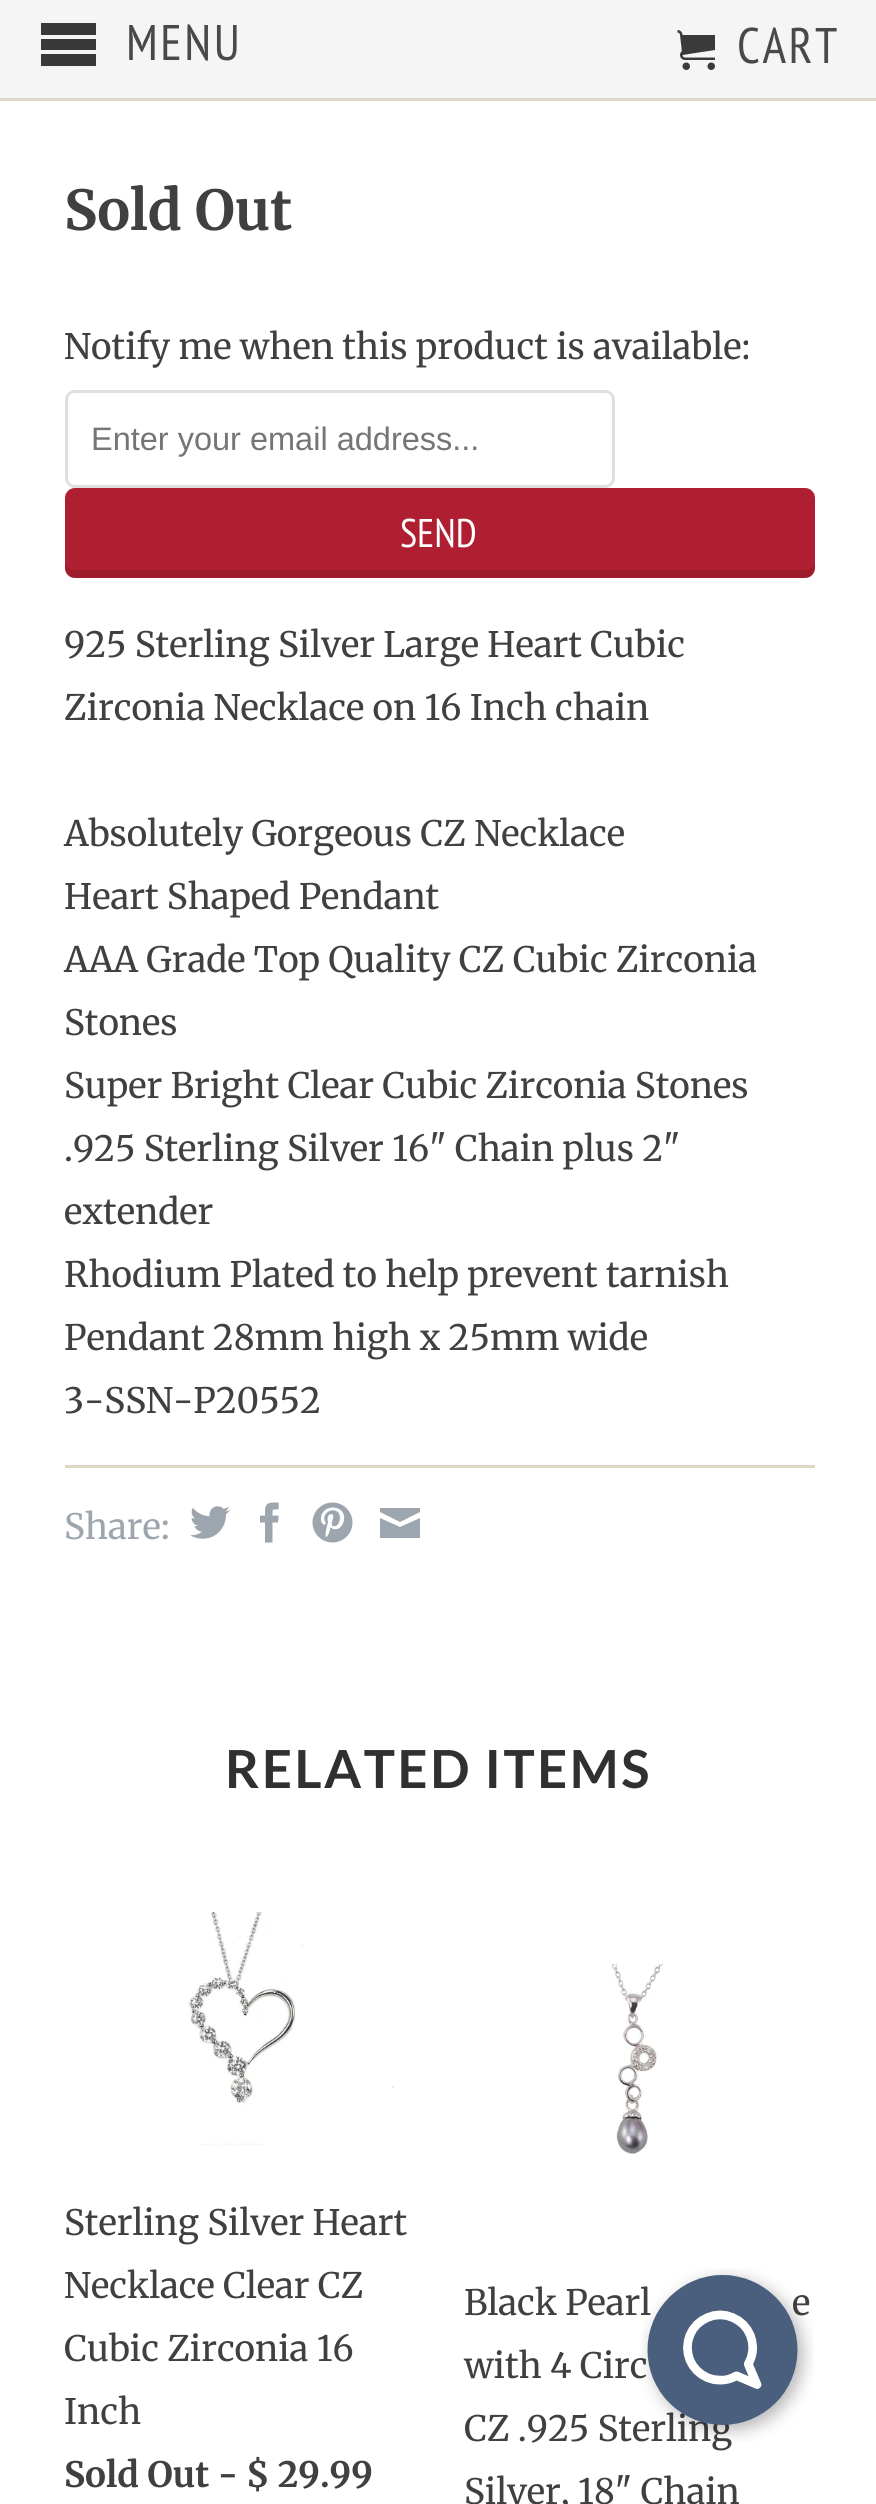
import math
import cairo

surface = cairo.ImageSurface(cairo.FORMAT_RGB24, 876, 2504)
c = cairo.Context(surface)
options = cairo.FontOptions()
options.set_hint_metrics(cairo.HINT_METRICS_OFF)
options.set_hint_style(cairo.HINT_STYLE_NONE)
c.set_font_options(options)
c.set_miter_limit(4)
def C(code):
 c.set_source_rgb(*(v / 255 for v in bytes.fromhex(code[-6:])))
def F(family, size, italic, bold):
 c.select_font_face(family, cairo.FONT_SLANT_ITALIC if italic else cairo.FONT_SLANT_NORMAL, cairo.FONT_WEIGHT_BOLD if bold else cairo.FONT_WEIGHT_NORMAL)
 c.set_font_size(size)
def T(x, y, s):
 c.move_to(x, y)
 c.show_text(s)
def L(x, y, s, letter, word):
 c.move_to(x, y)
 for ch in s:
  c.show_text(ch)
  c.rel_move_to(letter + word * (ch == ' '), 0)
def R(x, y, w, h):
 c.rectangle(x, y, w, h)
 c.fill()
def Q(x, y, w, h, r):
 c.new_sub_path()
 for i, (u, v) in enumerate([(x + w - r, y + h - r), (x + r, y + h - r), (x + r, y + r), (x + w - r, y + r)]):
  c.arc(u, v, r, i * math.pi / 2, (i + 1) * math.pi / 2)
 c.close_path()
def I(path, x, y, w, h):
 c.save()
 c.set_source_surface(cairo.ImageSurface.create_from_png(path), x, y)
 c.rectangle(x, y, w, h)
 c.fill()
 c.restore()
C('ffffff')
c.paint()
c.set_source_rgba(0.961,0.961,0.961,0.95)
R(0,0,876,100)
c.set_source_rgba(0.871,0.839,0.78,0.95)
R(0,98,876,3)
c.set_source_rgba(0.188,0.188,0.188,0.95)
c.new_path()
c.move_to(41,23)
c.line_to(41,35)
c.line_to(96,35)
c.line_to(96,23)
c.close_path()
c.move_to(41,39)
c.line_to(41,50)
c.line_to(96,50)
c.line_to(96,39)
c.close_path()
c.move_to(41,54)
c.line_to(41,66)
c.line_to(96,66)
c.line_to(96,54)
c.close_path()
c.fill()
F('PT Sans Narrow',50,0,0)
C('494949')
L(126,60,'MENU',2.5,0)
I('1.png',677,30,38,40)
L(737,63,'CART',2.5,0)
F('Merriweather',55,0,1)
C('404040')
T(64,230,'Sold Out')
F('Merriweather',35,0,0)
T(64,359,'Notify me when this product is available:')
Q(66.5,391.5,547,95,8.5)
C('dce0e0')
c.set_line_width(3)
c.stroke()
F('Liberation Sans',32.5,0,0)
C('757575')
T(91,450,'Enter your email address...')
C('af1f31')
Q(65,488,750,90,10)
c.fill()
c.set_source_rgba(0,0,0,0.1)
c.new_path()
c.move_to(65,560)
c.curve_to(65,567,64,576,73,578)
c.line_to(807,578)
c.curve_to(816,576,815,567,815,560)
c.curve_to(815,566,811,570,805,570)
c.line_to(75,570)
c.curve_to(69,570,65,566,65,560)
c.close_path()
c.fill()
F('PT Sans Narrow',40,0,0)
C('ffffff')
T(400,547,'SEND')
F('Merriweather',35,0,0)
C('404040')
T(64,657,'925 Sterling Silver Large Heart Cubic')
T(64,720,'Zirconia Necklace on 16 Inch chain')
T(64,846,'Absolutely Gorgeous CZ Necklace')
T(64,909,'Heart Shaped Pendant')
T(64,972,'AAA Grade Top Quality CZ Cubic Zirconia')
T(64,1035,'Stones')
T(64,1098,'Super Bright Clear Cubic Zirconia Stones')
T(64,1161,'.925 Sterling Silver 16" Chain plus 2"')
T(64,1224,'extender')
T(64,1287,'Rhodium Plated to help prevent tarnish')
T(64,1350,'Pendant 28mm high x 25mm wide')
T(64,1413,'3-SSN-P20552')
C('ded6c7')
R(65,1465,750,3)
C('9da6ae')
T(64,1539,'Share:')
c.new_path()
c.move_to(400,1522)
c.line_to(380,1512)
c.line_to(380,1508)
c.line_to(420,1508)
c.line_to(420,1512)
c.close_path()
c.move_to(400,1527)
c.line_to(420,1518)
c.line_to(420,1538)
c.line_to(380,1538)
c.line_to(380,1518)
c.close_path()
c.fill()
I('2.png',190,1506,40,33)
I('3.png',260,1502,19,41)
I('4.png',312,1502,41,41)
F('Lato',52.5,0,1)
C('303030')
L(225,1788,'RELATED ITEMS',2.5,0)
I('5.png',188,1912,206,233)
F('Merriweather',35,0,0)
C('404040')
T(64,2235,'Sterling Silver Heart')
T(64,2298,'Necklace Clear CZ')
T(64,2361,'Cubic Zirconia 16')
T(64,2424,'Inch')
F('Merriweather',35,0,1)
T(64,2487,'Sold Out - $ 29.99')
I('6.png',610,1964,53,190)
F('Merriweather',35,0,0)
T(464,2315,'Black Pearl')
T(792,2315,'e')
T(464,2378,'with 4 Circ')
T(464,2441,'CZ .925 Sterling')
T(464,2504,'Silver, 18" Chain')
I('7.png',641,2268,173,174)
surface.write_to_png('o.png')
